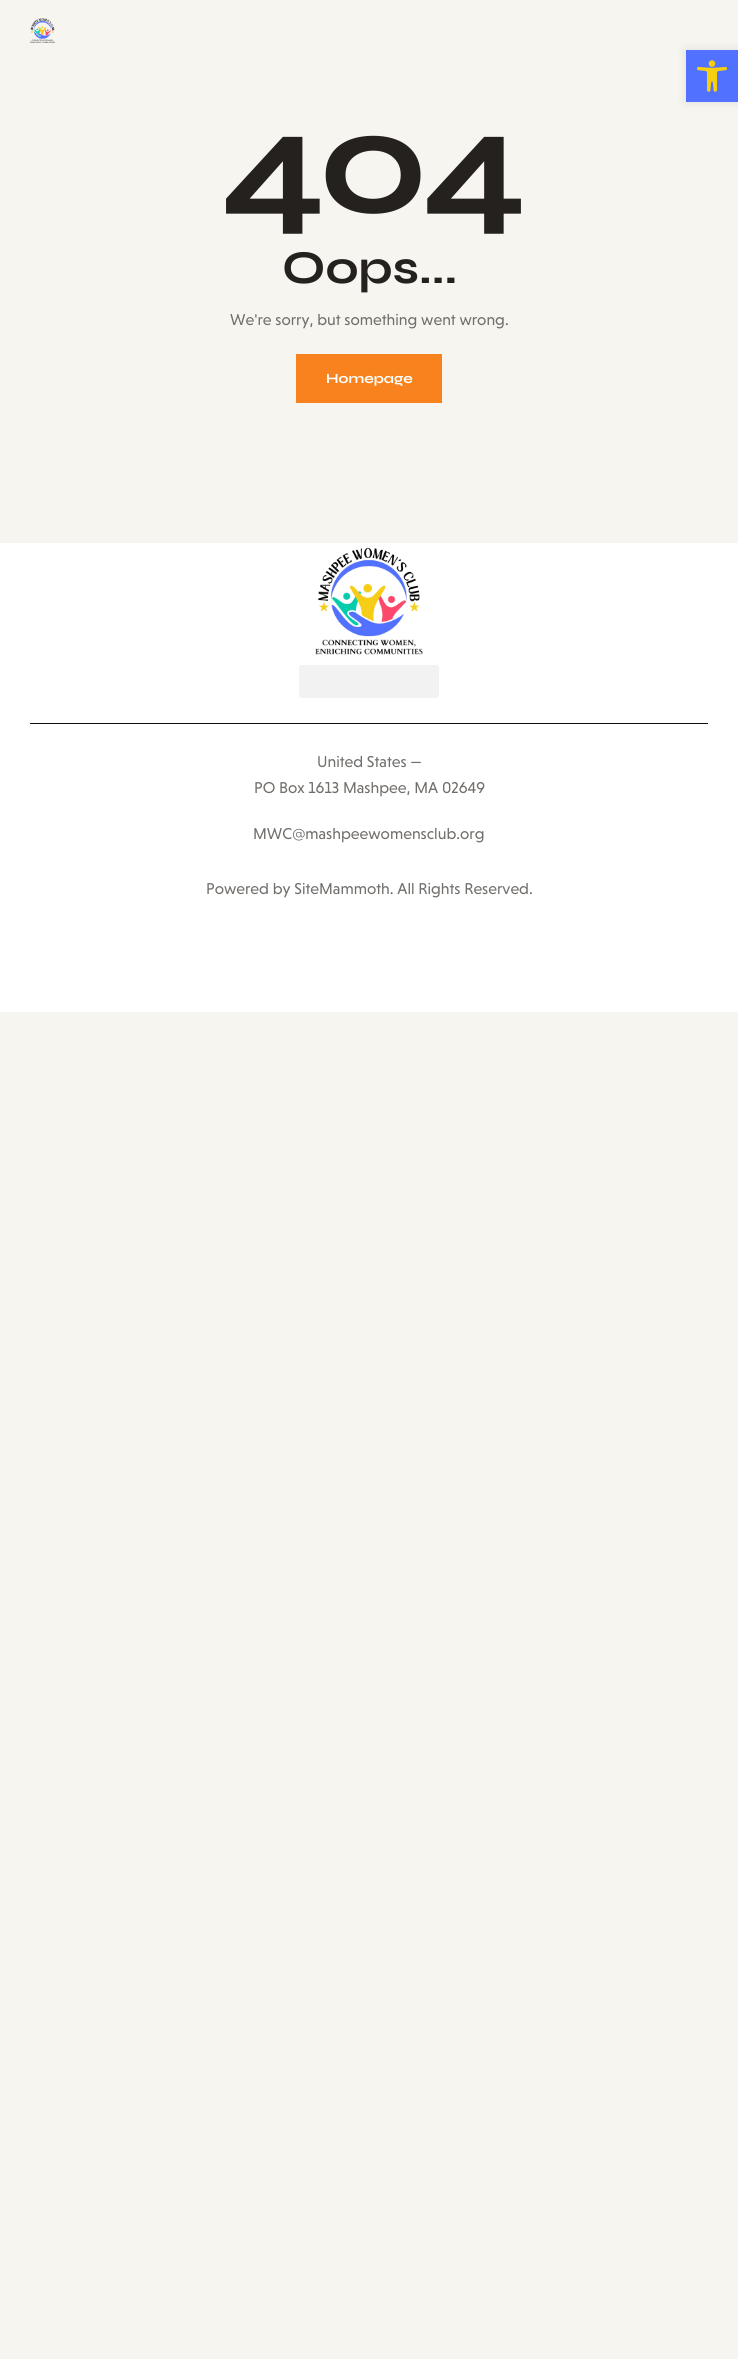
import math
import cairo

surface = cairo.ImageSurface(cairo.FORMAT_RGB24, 738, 2359)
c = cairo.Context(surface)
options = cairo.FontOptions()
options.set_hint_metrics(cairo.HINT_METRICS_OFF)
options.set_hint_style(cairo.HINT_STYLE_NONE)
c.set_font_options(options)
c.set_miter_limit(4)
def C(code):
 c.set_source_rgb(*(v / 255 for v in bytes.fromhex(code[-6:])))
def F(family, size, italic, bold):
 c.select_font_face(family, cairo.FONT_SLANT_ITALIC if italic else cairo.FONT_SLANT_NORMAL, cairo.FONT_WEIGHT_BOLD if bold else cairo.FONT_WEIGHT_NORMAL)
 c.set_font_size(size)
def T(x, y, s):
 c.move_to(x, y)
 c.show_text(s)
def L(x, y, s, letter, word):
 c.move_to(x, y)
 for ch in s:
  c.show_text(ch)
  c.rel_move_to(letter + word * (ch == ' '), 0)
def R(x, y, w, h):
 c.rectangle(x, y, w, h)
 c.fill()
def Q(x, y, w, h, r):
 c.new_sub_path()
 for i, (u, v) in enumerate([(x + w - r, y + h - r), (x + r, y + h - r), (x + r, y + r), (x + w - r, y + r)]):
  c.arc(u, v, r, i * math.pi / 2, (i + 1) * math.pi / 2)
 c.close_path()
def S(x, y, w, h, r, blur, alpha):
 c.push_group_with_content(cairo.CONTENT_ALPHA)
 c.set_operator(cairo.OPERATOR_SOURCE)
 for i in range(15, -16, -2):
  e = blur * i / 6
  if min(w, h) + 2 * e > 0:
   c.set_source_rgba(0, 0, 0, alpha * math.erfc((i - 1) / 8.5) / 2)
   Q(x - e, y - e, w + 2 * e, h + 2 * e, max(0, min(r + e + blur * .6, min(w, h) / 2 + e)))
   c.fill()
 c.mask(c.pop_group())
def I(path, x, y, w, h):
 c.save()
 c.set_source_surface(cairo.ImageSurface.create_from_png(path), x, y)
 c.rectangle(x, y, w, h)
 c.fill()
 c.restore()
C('f7f5f0')
c.paint()
C('000000')
S(686,50,52,52,0,5,.1)
C('5172ff')
R(686,50,52,52)
I('1.png',697,60,30,32)
I('2.png',30,18,25,25)
F('Syne',150,0,1)
C('24211f')
L(219,212,'404',-8,0)
F('Syne',47,0,1)
T(282,283,'Oops...')
F('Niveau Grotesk',16,0,0)
C('716e6b')
T(230,325,'We\'re sorry, but something went wrong.')
C('f8831e')
R(296,354,146,49)
F('Syne',14,0,1)
C('ffffff')
T(326,383,'Homepage')
R(0,543,738,469)
I('3.png',315,547,108,108)
C('f2f2f2')
Q(299,665,140,33,3)
c.fill()
C('0c0d0e')
R(30,723,678,1)
F('Niveau Grotesk',16,0,0)
C('716e6b')
T(317,767,'United States —')
T(254,793,'PO Box 1613 Mashpee, MA 02649')
T(253,839,'MWC@mashpeewomensclub.org')
T(206,894,'Powered by SiteMammoth. All Rights Reserved.')
surface.write_to_png('o.png')
